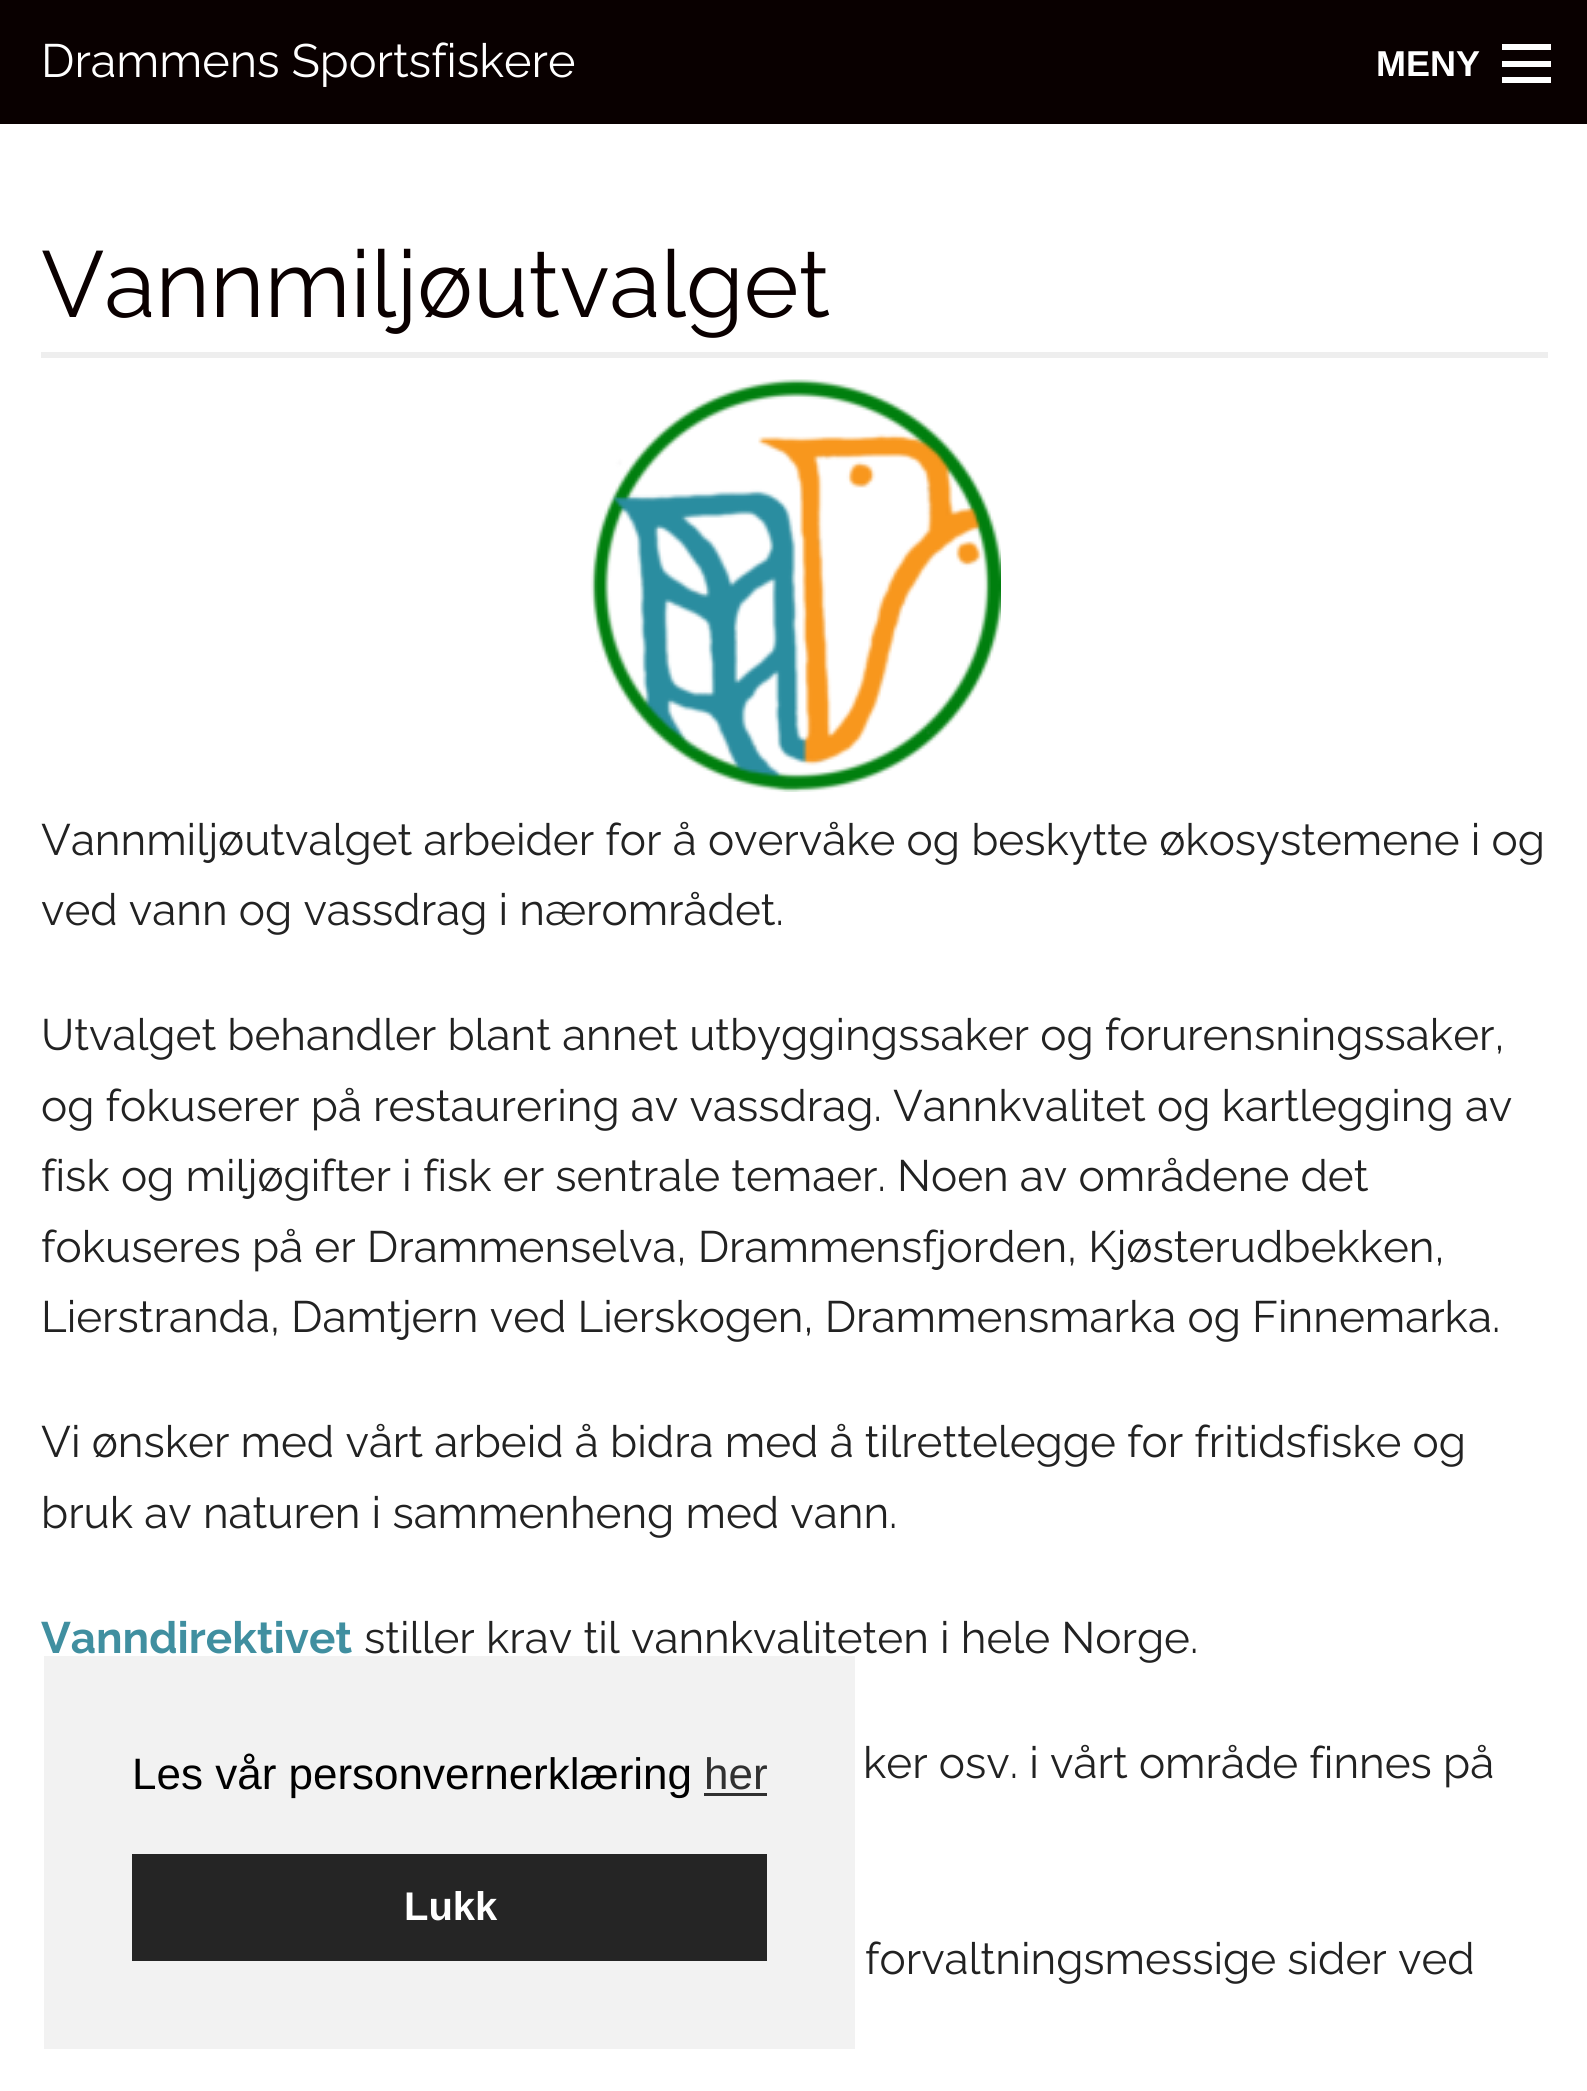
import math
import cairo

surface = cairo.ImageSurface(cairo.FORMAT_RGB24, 1587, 2091)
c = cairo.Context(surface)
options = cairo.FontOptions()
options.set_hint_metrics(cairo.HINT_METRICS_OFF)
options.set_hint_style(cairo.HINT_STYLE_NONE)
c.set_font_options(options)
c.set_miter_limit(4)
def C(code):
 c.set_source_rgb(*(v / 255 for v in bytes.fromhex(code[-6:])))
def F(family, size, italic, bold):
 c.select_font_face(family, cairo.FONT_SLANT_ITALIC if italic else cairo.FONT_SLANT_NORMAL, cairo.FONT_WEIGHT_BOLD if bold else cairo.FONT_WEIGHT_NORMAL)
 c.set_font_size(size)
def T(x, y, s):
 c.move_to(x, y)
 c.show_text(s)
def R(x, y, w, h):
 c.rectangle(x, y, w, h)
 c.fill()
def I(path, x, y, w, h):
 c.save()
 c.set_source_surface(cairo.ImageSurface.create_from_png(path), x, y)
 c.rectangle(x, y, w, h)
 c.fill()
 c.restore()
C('ffffff')
c.paint()
C('090000')
R(0,0,1587,124)
F('Raleway',46.75,0,0)
C('ffffff')
T(41,77,'Drammens Sportsfiskere')
F('Liberation Sans',36,0,1)
T(1376,76,'MENY')
R(1502,77,49,6)
R(1502,61,49,6)
R(1502,44,49,6)
C('eeeeee')
R(41,352,1507,6)
F('Raleway',93.5,0,0)
C('0a0000')
T(41,317,'Vannmiljøutvalget')
I('1.png',590,379,411,413)
F('Raleway',44,0,0)
C('222222')
T(41,855,'Vannmiljøutvalget arbeider for å overvåke og beskytte økosystemene i og')
T(41,925,'ved vann og vassdrag i nærområdet.')
T(41,1050,'Utvalget behandler blant annet utbyggingssaker og forurensningssaker,')
T(41,1121,'og fokuserer på restaurering av vassdrag. Vannkvalitet og kartlegging av')
T(41,1191,'fisk og miljøgifter i fisk er sentrale temaer. Noen av områdene det')
T(41,1262,'fokuseres på er Drammenselva, Drammensfjorden, Kjøsterudbekken,')
T(41,1332,'Lierstranda, Damtjern ved Lierskogen, Drammensmarka og Finnemarka.')
T(41,1457,'Vi ønsker med vårt arbeid å bidra med å tilrettelegge for fritidsfiske og')
T(41,1528,'bruk av naturen i sammenheng med vann.')
F('Raleway',44,0,1)
C('408fa0')
T(41,1653,'Vanndirektivet')
F('Raleway',44,0,0)
C('222222')
T(364,1653,'stiller krav til vannkvaliteten i hele Norge.')
T(863,1778,'ker osv. i vårt område finnes på')
T(865,1974,'forvaltningsmessige sider ved')
C('f2f2f2')
R(44,1656,811,393)
F('Liberation Sans',44,0,0)
C('000000')
T(132,1789,'Les vår personvernerklæring')
C('303030')
T(704,1789,'her')
R(704,1793,63,3)
C('252525')
R(132,1854,635,107)
F('Liberation Sans',40,0,1)
C('ffffff')
T(404,1920,'Lukk')
surface.write_to_png('o.png')
